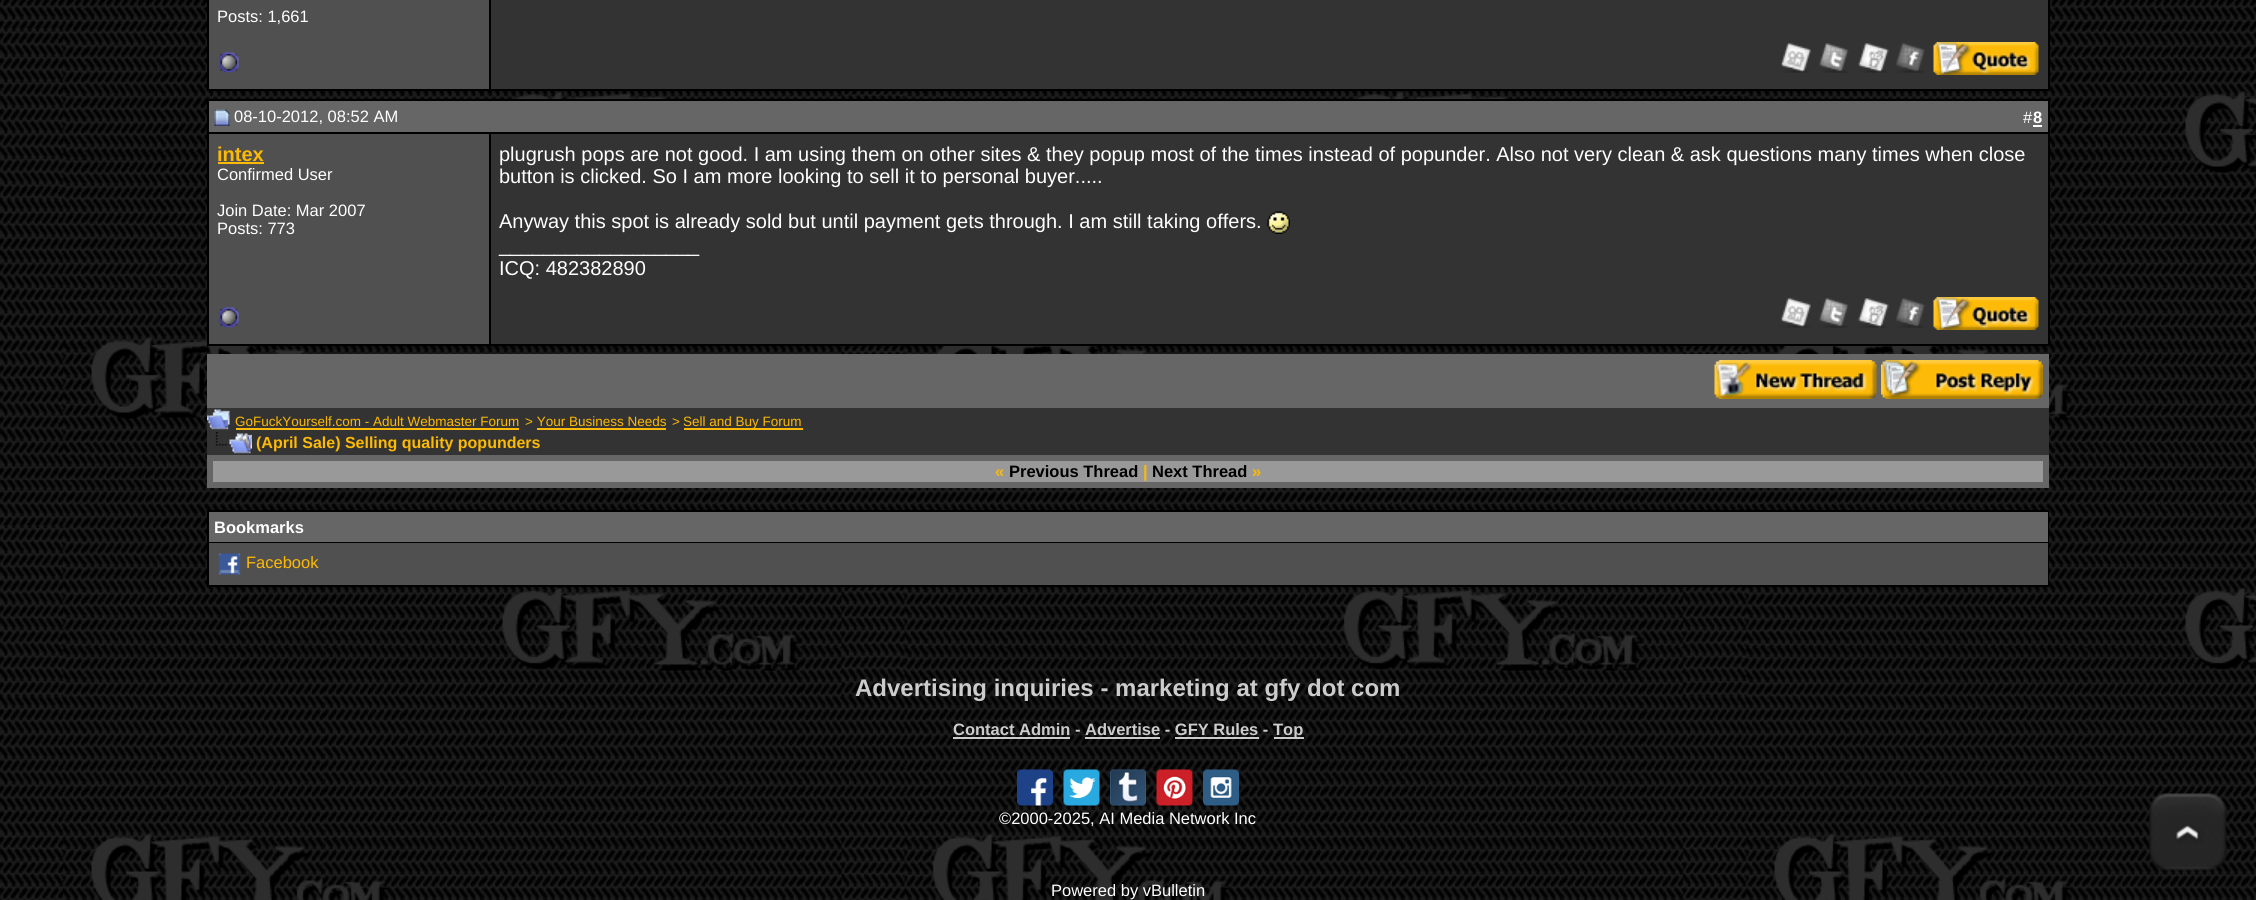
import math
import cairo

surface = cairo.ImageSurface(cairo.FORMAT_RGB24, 2256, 900)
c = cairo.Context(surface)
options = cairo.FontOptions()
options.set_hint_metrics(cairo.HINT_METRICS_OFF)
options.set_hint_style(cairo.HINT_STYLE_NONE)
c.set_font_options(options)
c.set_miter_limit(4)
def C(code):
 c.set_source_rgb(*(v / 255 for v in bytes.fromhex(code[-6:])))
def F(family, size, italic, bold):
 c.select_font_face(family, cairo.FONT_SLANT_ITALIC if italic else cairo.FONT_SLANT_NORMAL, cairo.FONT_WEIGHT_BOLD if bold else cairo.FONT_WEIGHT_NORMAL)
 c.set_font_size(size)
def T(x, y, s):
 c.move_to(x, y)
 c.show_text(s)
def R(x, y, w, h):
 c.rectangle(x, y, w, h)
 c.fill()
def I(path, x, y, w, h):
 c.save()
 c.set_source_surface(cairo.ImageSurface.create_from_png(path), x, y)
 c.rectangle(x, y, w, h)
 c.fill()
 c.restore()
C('ffffff')
c.paint()
I('1.png',0,0,2256,900)
C('505050')
R(209,0,280,89)
C('000000')
R(489,0,2,90)
R(207,0,2,33)
F('Liberation Sans',16.5,0,0)
C('ffffff')
T(217,22,'Posts: 1,661')
C('333333')
R(491,0,1557,89)
C('000000')
R(2048,0,2,90)
R(207,89,1842,2)
R(207,33,2,57)
I('2.png',218,52,21,21)
I('3.png',1780,43,31,30)
I('4.png',1819,43,30,30)
I('5.png',1858,43,31,30)
I('6.png',1896,43,29,30)
I('7.png',1933,42,106,33)
C('666666')
R(209,101,1839,31)
C('000000')
R(207,99,1842,2)
R(207,132,284,2)
R(207,99,2,189)
I('8.png',214,109,16,17)
C('ffffff')
T(234,122,'08-10-2012, 08:52 AM')
C('000000')
R(2048,99,2,246)
R(491,132,1558,2)
C('ffffff')
T(2023,123,'#')
F('Liberation Sans',16.5,0,1)
T(2033,123,'8')
R(2033,125,9,2)
C('505050')
R(209,134,280,210)
C('000000')
R(489,134,2,211)
F('Liberation Sans',20,0,1)
C('fdba05')
T(217,161,'intex')
R(218,162,46,2)
F('Liberation Sans',16.5,0,0)
C('ffffff')
T(217,180,'Confirmed User')
T(217,216,'Join Date: Mar 2007')
T(217,234,'Posts: 773')
C('333333')
R(491,134,1557,210)
F('Liberation Sans',20,0,0)
C('ffffff')
T(499,161,'plugrush pops are not good. I am using them on other sites & they popup most of the times instead of popunder. Also not very clean & ask questions many times when close')
T(499,183,'button is clicked. So I am more looking to sell it to personal buyer.....')
T(499,228,'Anyway this spot is already sold but until payment gets through. I am still taking offers.')
I('9.png',1267,211,23,23)
T(499,252,'__________________')
T(499,275,'ICQ: 482382890')
C('000000')
R(207,344,1842,2)
R(207,288,2,57)
I('2.png',218,307,21,21)
I('3.png',1780,298,31,30)
I('4.png',1819,298,30,30)
I('5.png',1858,298,31,30)
I('6.png',1896,298,29,30)
I('7.png',1933,297,106,33)
C('666666')
R(207,354,1842,54)
I('10.png',1714,360,163,39)
I('11.png',1881,360,162,39)
C('333333')
R(207,408,1842,47)
I('12.png',207,409,23,21)
F('Liberation Sans',13.5,0,0)
C('fdba05')
T(235,426,'GoFuckYourself.com - Adult Webmaster Forum')
R(236,428,283,2)
T(525,426,'> Your Business Needs')
R(537,428,129,2)
T(672,426,'>')
R(684,428,119,2)
T(683,426,'Sell and Buy Forum')
I('13.png',215,432,37,22)
F('Liberation Sans',16,0,1)
T(256,448,'(April Sale) Selling quality popunders')
C('666666')
R(207,455,1842,33)
C('999999')
R(213,461,1830,21)
F('Liberation Sans',16.5,0,1)
C('fdba05')
T(995,477,'«')
C('000000')
T(1009,477,'Previous Thread')
C('fdba05')
T(1143,477,'|')
C('000000')
T(1152,477,'Next Thread')
C('fdba05')
T(1252,477,'»')
C('000000')
R(207,510,1842,77)
C('666666')
R(209,512,1839,30)
C('ffffff')
T(214,533,'Bookmarks')
C('505050')
R(209,543,1839,42)
I('14.png',218,553,23,22)
F('Liberation Sans',16.5,0,0)
C('fdba05')
T(246,568,'Facebook')
F('Liberation Sans',24,0,1)
C('cccccc')
T(855,696,'Advertising inquiries - marketing at gfy dot com')
F('Liberation Sans',16.5,0,1)
T(953,735,'Contact Admin - Advertise - GFY Rules -')
R(953,737,117,2)
R(1085,737,75,2)
R(1175,737,84,2)
R(1274,737,30,2)
T(1273,735,'Top')
I('15.png',1017,769,36,37)
I('16.png',1063,769,37,37)
I('17.png',1110,769,36,37)
I('18.png',1156,769,37,37)
I('19.png',1203,769,36,37)
F('Liberation Sans',16.5,0,0)
C('ffffff')
T(999,824,'©2000-2025, AI Media Network Inc')
T(1051,896,'Powered by vBulletin')
I('20.png',2149,793,78,78)
surface.write_to_png('o.png')
